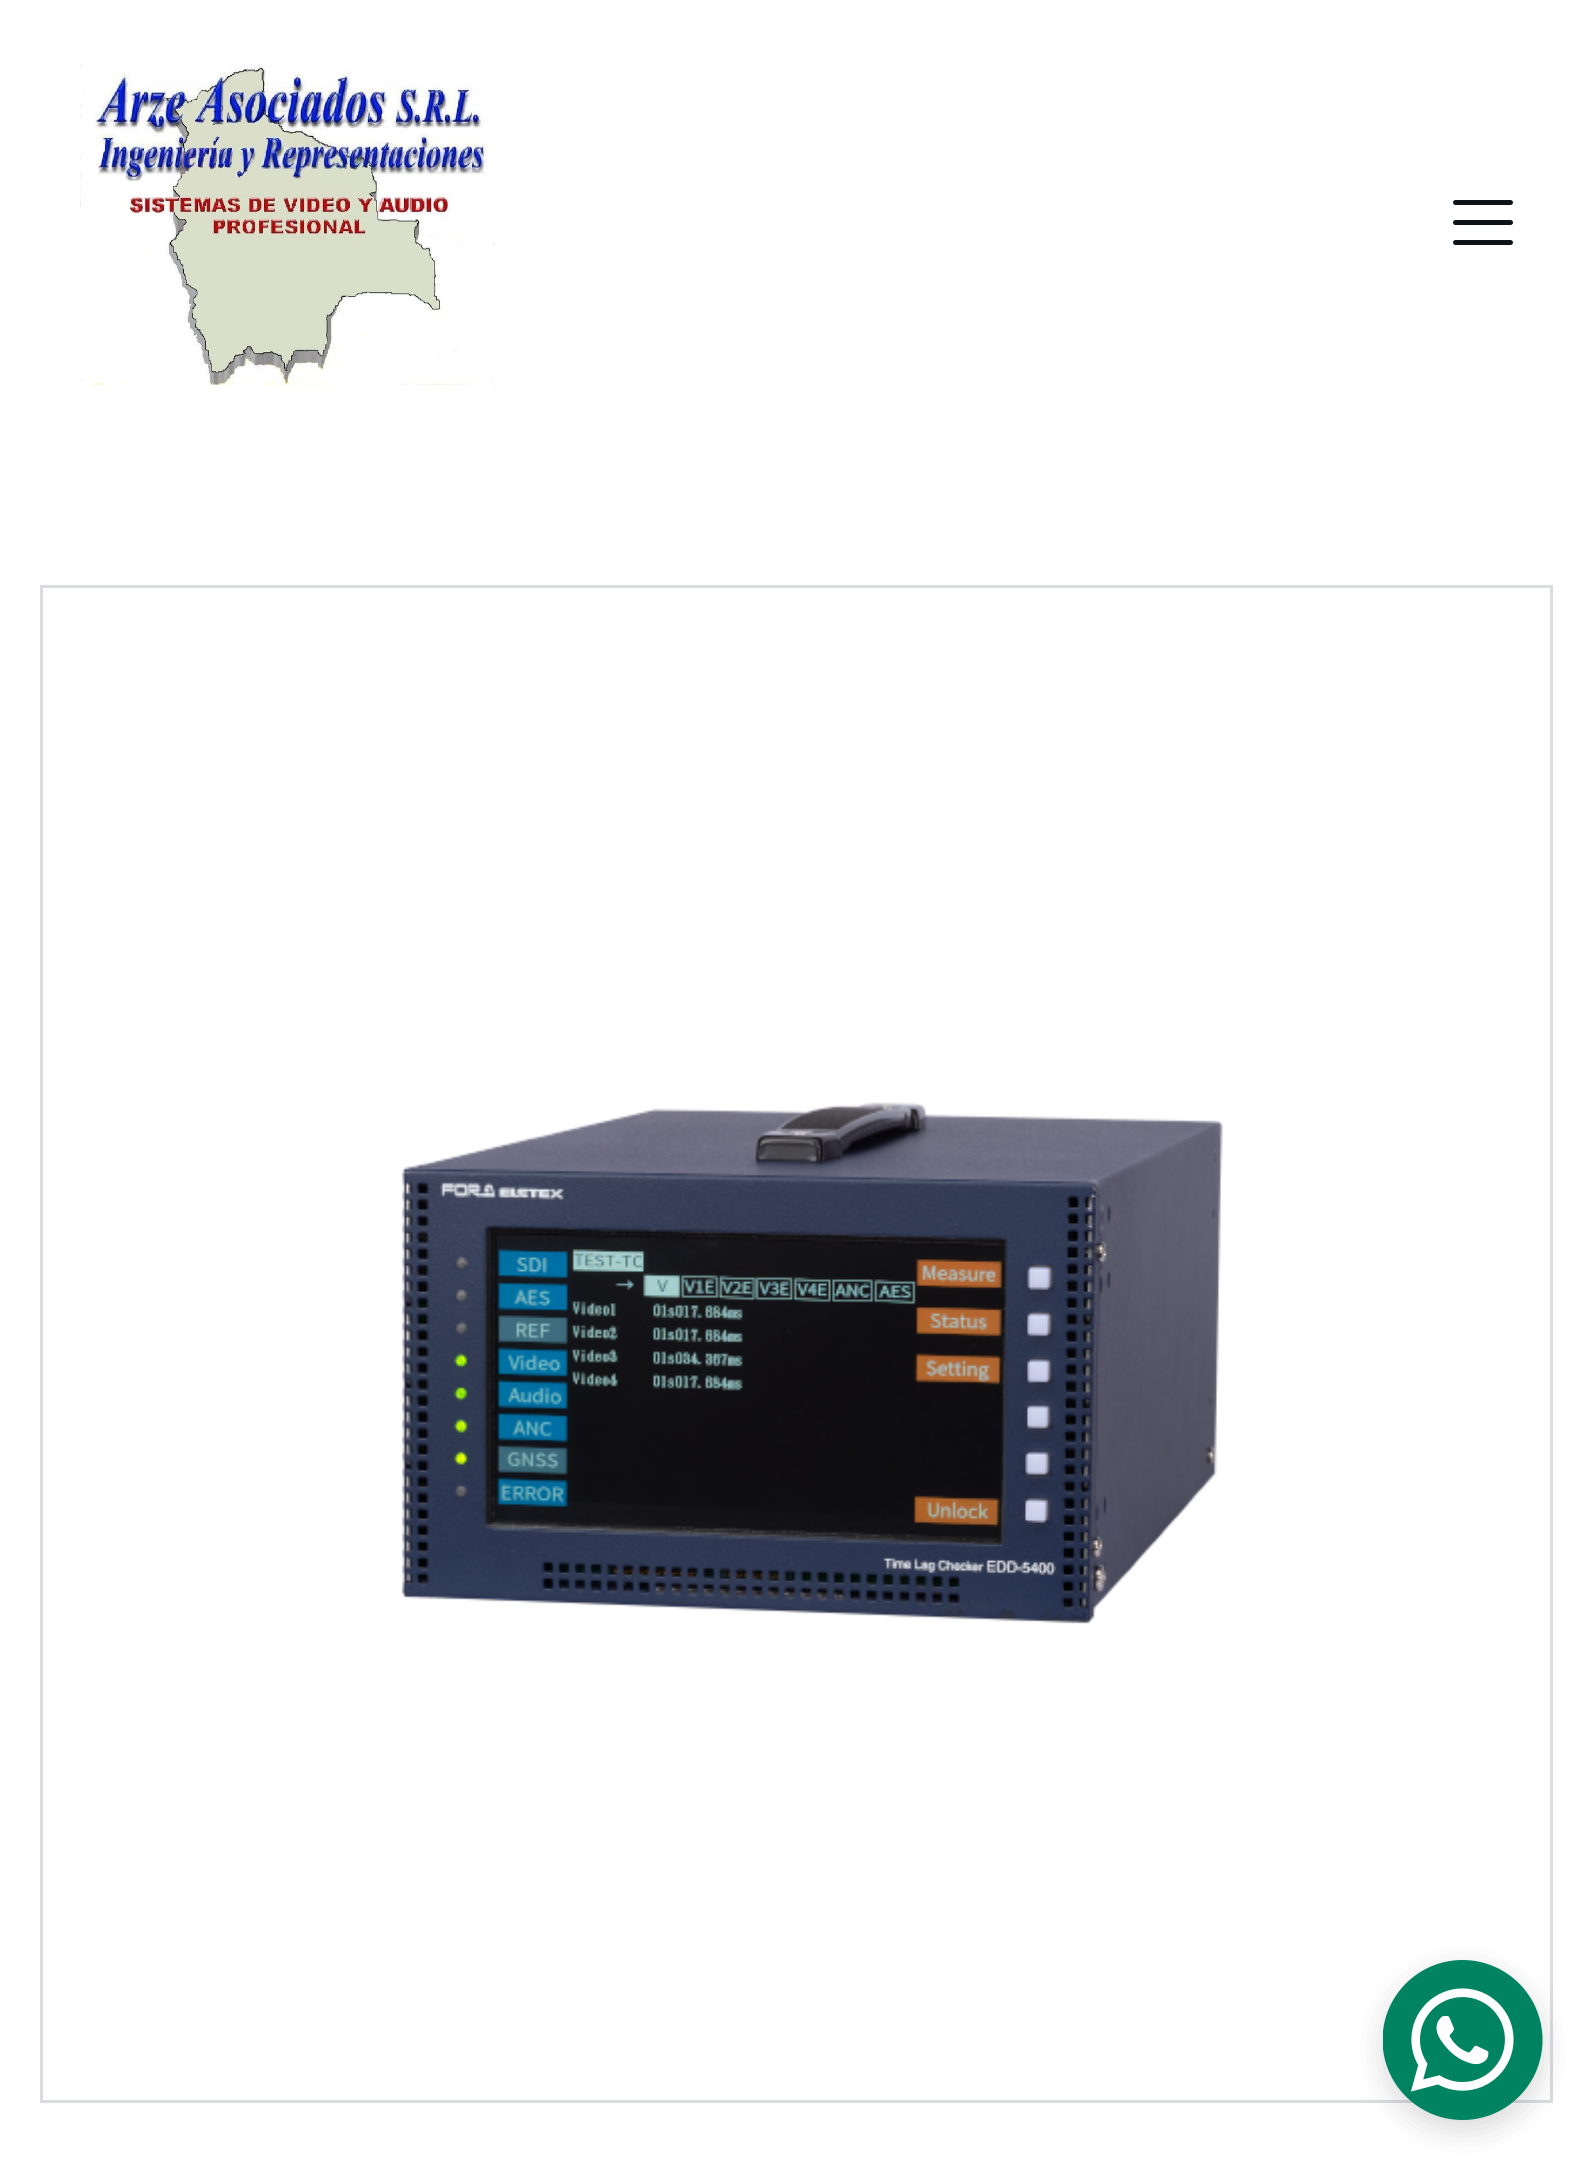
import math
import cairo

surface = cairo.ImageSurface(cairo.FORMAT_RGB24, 1591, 2180)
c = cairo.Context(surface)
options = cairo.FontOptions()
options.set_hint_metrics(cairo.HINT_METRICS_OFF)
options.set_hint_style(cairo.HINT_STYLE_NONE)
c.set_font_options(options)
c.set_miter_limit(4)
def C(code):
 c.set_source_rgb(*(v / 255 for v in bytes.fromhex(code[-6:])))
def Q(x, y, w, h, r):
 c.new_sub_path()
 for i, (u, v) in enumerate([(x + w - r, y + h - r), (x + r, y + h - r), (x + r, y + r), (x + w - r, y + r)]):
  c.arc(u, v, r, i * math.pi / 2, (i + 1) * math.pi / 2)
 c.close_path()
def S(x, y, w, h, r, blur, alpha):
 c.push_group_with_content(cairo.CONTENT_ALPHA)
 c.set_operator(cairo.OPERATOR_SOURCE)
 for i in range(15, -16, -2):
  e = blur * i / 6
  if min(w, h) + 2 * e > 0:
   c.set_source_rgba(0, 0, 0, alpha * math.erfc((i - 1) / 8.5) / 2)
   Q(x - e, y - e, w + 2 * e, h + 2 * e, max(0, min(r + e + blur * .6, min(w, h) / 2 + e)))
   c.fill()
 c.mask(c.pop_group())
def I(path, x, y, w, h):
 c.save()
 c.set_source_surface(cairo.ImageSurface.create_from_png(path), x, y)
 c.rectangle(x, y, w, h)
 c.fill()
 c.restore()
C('ffffff')
c.paint()
I('1.png',80,63,415,322)
C('0d141a')
Q(1453,200,60,5,2.5)
c.fill()
Q(1453,220,60,5,2.5)
c.fill()
Q(1453,240,60,5,2.5)
c.fill()
c.rectangle(41.5,586.5,1510,1515)
C('dadce0')
c.set_line_width(3)
c.stroke()
I('2.png',401,1102,822,522)
C('000000')
S(1383,1970,160,160,80,15,.15)
I('3.png',1383,1960,160,160)
surface.write_to_png('o.png')
